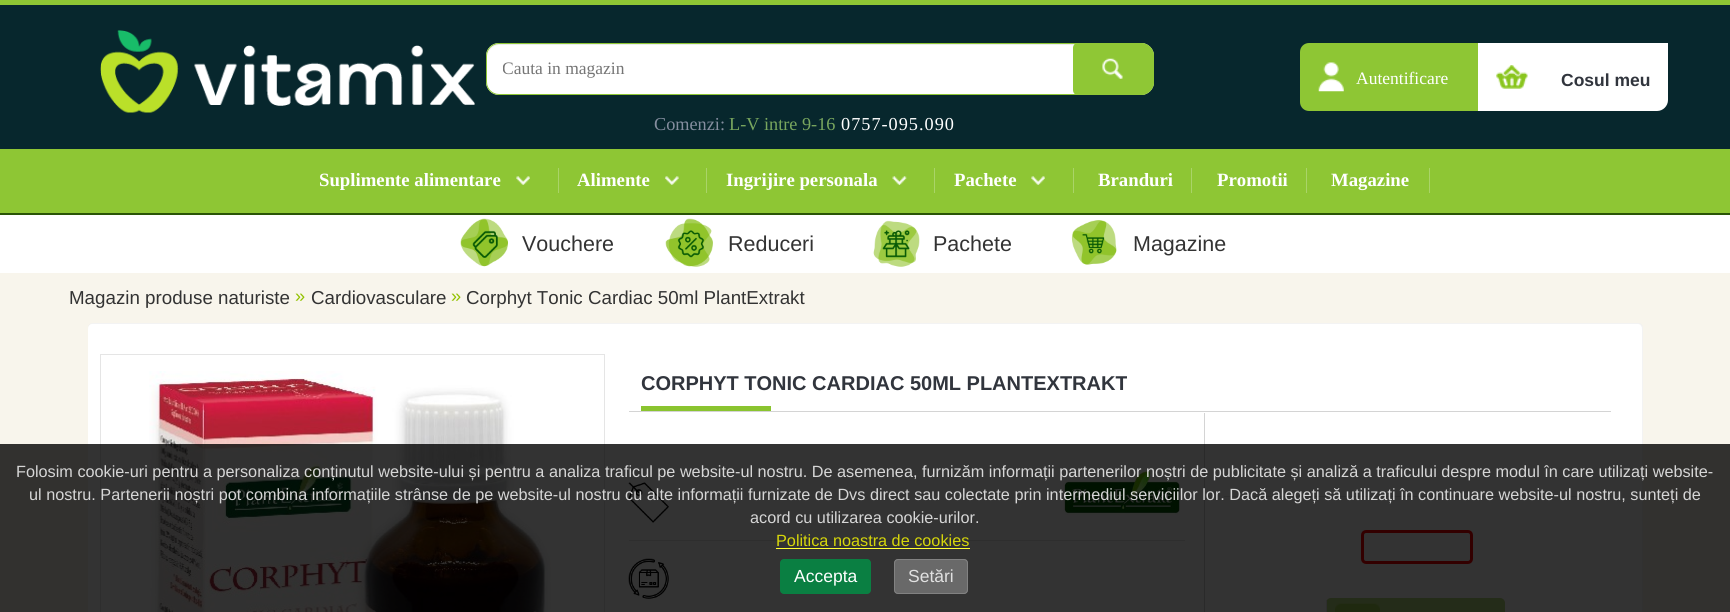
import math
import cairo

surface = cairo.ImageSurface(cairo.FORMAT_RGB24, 1730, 612)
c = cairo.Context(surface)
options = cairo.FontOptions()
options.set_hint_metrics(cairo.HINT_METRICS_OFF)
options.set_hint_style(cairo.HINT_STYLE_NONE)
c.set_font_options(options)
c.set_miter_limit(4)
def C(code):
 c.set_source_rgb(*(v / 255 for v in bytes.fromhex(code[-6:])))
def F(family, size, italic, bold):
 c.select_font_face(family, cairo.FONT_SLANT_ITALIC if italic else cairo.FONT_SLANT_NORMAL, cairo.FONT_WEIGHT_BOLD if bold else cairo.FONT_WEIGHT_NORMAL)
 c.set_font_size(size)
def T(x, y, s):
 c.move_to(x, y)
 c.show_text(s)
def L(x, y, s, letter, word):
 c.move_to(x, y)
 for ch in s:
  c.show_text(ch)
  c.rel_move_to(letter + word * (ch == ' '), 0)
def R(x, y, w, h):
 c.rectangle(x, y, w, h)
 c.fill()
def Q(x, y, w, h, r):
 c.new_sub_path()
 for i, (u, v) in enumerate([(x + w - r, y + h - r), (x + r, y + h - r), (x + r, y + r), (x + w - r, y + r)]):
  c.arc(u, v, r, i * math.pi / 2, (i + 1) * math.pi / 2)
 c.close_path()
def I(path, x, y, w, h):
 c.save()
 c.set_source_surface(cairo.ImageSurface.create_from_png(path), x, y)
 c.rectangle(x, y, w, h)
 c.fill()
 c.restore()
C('f8f5ec')
c.paint()
C('8ec634')
R(0,0,1730,5)
C('07272d')
R(0,5,1730,144)
I('1.png',100,30,375,83)
C('ffffff')
Q(486,43,668,52,13)
c.fill()
C('ececec')
c.new_path()
c.move_to(499,45)
c.line_to(1141,45)
c.curve_to(1147,45,1152,50,1152,56)
c.line_to(1152,84)
c.curve_to(1152,87,1151,89,1149,91)
c.curve_to(1151,89,1153,86,1153,83)
c.line_to(1153,55)
c.curve_to(1153,49,1148,44,1142,44)
c.line_to(499,44)
c.curve_to(493,44,488,49,488,55)
c.line_to(488,56)
c.curve_to(488,50,493,45,499,45)
c.close_path()
c.fill()
Q(486.5,43.5,667,51,12.5)
C('8ec634')
c.set_line_width(1)
c.stroke()
c.save()
c.rectangle(503,59,635,20)
c.clip()
F('Liberation Serif',17.5,0,0)
C('757575')
T(502,74,'Cauta in magazin')
c.restore()
C('8fc735')
c.new_path()
c.move_to(1078,43)
c.line_to(1141,43)
c.curve_to(1148,43,1154,49,1154,56)
c.line_to(1154,82)
c.curve_to(1154,89,1148,95,1141,95)
c.line_to(1078,95)
c.curve_to(1075,95,1073,93,1073,90)
c.line_to(1073,48)
c.curve_to(1073,45,1075,43,1078,43)
c.close_path()
c.fill()
I('2.png',1102,58,21,21)
F('Liberation Serif',18.25,0,0)
C('858e9f')
T(654,130,'Comenzi:')
C('78a65e')
T(729,130,'L-V intre 9-16')
C('ffffff')
L(841,130,'0757-095.090',1,0)
C('8ec634')
c.new_path()
c.move_to(1309,43)
c.line_to(1478,43)
c.line_to(1478,111)
c.line_to(1309,111)
c.curve_to(1304,111,1300,107,1300,102)
c.line_to(1300,52)
c.curve_to(1300,47,1304,43,1309,43)
c.close_path()
c.fill()
I('3.png',1318,62,26,30)
F('Liberation Serif',17.5,0,0)
C('ffffff')
T(1356,84,'Autentificare')
c.new_path()
c.move_to(1478,43)
c.line_to(1668,43)
c.line_to(1668,100)
c.curve_to(1668,106,1663,111,1657,111)
c.line_to(1478,111)
c.close_path()
c.fill()
I('4.png',1496,65,32,24)
F('Liberation Sans',17.5,0,1)
C('31353d')
T(1561,86,'Cosul meu')
C('8ec634')
R(0,149,1730,64)
C('295405')
R(0,213,1730,2)
I('5.png',516,176,14,9)
C('aad468')
R(558,168,1,25)
F('Liberation Serif',18.75,0,1)
C('ffffff')
T(319,186,'Suplimente alimentare')
I('6.png',665,176,14,9)
C('aad468')
R(706,168,1,25)
C('ffffff')
T(577,186,'Alimente')
I('7.png',892,176,15,9)
C('aad468')
R(934,168,1,25)
C('ffffff')
T(726,186,'Ingrijire personala')
I('5.png',1031,176,14,9)
C('aad468')
R(1073,168,1,25)
C('ffffff')
T(954,186,'Pachete')
C('aad468')
R(1191,168,1,25)
C('ffffff')
T(1098,186,'Branduri')
C('aad468')
R(1306,168,1,25)
C('ffffff')
T(1217,186,'Promotii')
C('aad468')
R(1429,168,1,25)
C('ffffff')
T(1331,186,'Magazine')
R(0,215,1730,58)
I('8.png',460,218,48,49)
F('Liberation Sans',21.5,0,0)
C('333333')
T(522,251,'Vouchere')
I('9.png',665,218,48,49)
T(728,251,'Reduceri')
I('10.png',873,220,47,47)
T(933,251,'Pachete')
I('11.png',1071,220,46,45)
T(1133,251,'Magazine')
F('Liberation Sans',18.75,0,0)
T(69,304,'Magazin produse naturiste')
F('Liberation Sans',18.25,0,0)
C('92c200')
T(295,302,'»')
F('Liberation Sans',18.75,0,0)
C('333333')
T(311,304,'Cardiovasculare')
F('Liberation Sans',18.25,0,0)
C('92c200')
T(451,302,'»')
F('Liberation Sans',18.75,0,0)
C('333333')
T(466,304,'Corphyt Tonic Cardiac 50ml PlantExtrakt')
C('ffffff')
Q(88,323,1555,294,5)
c.fill()
c.set_source_rgba(0,0,0,0.05)
c.new_path()
c.move_to(92,324)
c.line_to(1638,324)
c.curve_to(1640,324,1642,326,1642,329)
c.line_to(1642,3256)
c.line_to(1641,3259)
c.curve_to(1642,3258,1643,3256,1643,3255)
c.line_to(1643,328)
c.curve_to(1643,325,1641,323,1638,323)
c.line_to(93,323)
c.curve_to(90,323,88,325,88,328)
c.line_to(88,329)
c.curve_to(88,326,90,324,92,324)
c.close_path()
c.fill()
c.rectangle(100.5,354.5,504,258)
C('e5e5e5')
c.stroke()
I('12.png',149,371,402,241)
C('d4d4d4')
R(629,411,982,1)
F('Liberation Sans',20,0,1)
C('31353d')
T(641,390,'CORPHYT TONIC CARDIAC 50ML PLANTEXTRAKT')
C('8ac42f')
R(641,406,130,5)
C('d4d4d4')
R(1204,413,1,199)
I('13.png',628,482,41,41)
C('e8e8e8')
R(629,540,556,1)
I('14.png',1061,470,119,45)
I('15.png',628,558,41,41)
R(1224,496,387,1)
Q(1362.5,531.5,109,31,3.5)
C('ff0000')
c.set_line_width(3)
c.stroke()
C('b6da7b')
Q(1326,598,179,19,5)
c.fill()
I('16.png',1335,603,45,9)
C('e4e4e4')
R(1326,600,1,12)
c.set_source_rgba(0,0,0,0.8)
R(0,444,1730,168)
F('Liberation Sans',16.25,0,0)
C('d6d6d6')
T(16,477,'Folosim cookie-uri pentru a personaliza conținutul website-ului și pentru a analiza traficul pe website-ul nostru. De asemenea, furnizăm informații partenerilor noștri de publicitate și analiză a traficului despre modul în care utilizați website-')
T(29,500,'ul nostru. Partenerii noștri pot combina informațiile strânse de pe website-ul nostru cu alte informații furnizate de Dvs direct sau colectate prin intermediul serviciilor lor. Dacă alegeți să utilizați în continuare website-ul nostru, sunteți de')
T(750,523,'acord cu utilizarea cookie-urilor.')
C('d6d60a')
T(776,546,'Politica noastra de cookies')
C('ffff33')
R(776,548,194,1)
c.set_source_rgba(0,0.573,0.278,0.8)
Q(780,559,91,35,4)
c.fill()
F('Liberation Sans',17.5,0,0)
C('ffffff')
T(794,582,'Accepta')
c.set_source_rgba(0.467,0.467,0.467,0.8)
Q(894,559,74,35,4)
c.fill()
Q(894.5,559.5,73,34,3.5)
c.set_source_rgba(0.533,0.533,0.533,0.8)
c.set_line_width(1)
c.stroke()
C('e1e1e1')
T(908,582,'Setări')
surface.write_to_png('o.png')
